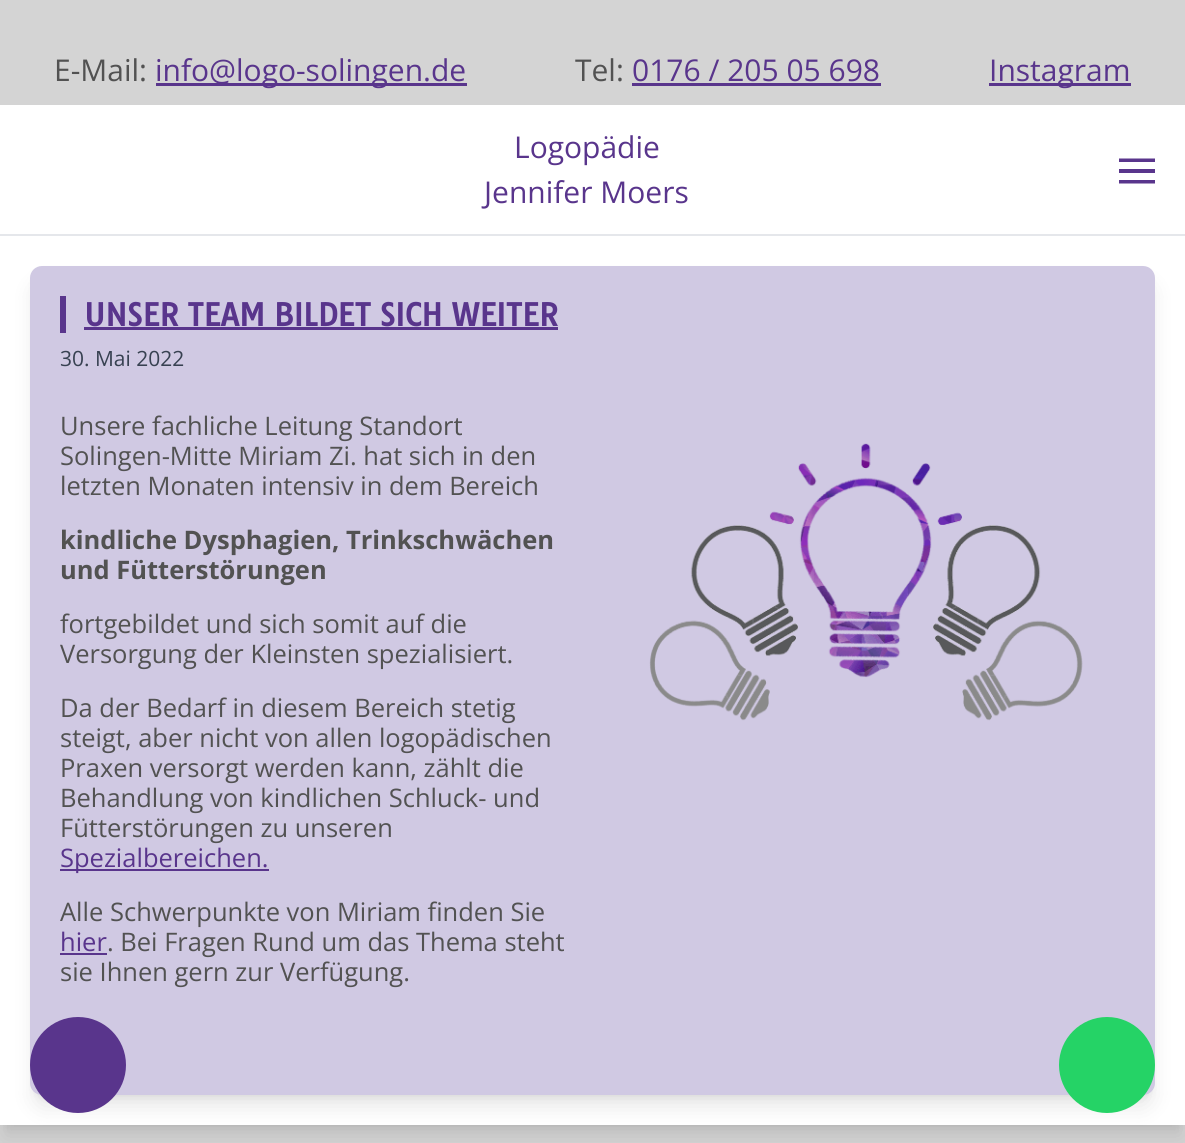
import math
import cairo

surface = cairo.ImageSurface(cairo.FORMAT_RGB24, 1185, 1143)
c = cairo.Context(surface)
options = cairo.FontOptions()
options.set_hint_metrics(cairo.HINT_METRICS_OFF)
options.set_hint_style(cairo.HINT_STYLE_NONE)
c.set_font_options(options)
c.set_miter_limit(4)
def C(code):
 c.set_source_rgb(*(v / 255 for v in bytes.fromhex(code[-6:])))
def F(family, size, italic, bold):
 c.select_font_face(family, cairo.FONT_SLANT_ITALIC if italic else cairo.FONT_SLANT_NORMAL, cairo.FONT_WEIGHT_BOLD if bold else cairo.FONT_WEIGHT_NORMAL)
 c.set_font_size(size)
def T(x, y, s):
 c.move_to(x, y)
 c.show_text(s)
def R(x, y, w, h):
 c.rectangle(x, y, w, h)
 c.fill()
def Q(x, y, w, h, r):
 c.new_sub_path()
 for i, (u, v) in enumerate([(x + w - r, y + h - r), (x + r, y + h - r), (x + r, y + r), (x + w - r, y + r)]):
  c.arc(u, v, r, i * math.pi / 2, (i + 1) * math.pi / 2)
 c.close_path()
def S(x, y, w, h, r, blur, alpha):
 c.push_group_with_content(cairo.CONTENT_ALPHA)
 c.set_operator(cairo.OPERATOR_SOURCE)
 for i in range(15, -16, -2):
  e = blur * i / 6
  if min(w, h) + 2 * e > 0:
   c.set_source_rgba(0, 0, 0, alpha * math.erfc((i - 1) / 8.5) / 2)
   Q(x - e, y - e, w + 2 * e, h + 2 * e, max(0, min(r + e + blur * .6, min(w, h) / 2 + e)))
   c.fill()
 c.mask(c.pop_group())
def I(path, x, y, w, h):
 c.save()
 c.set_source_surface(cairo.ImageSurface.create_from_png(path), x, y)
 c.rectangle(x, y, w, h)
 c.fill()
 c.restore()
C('d4d4d4')
c.paint()
F('Open Sans',30,0,0)
C('525252')
T(54,81,'E-Mail:')
C('59358c')
R(156,83,311,3)
T(155,81,'info@logo-solingen.de')
C('525252')
T(575,81,'Tel:')
C('59358c')
T(632,81,'0176 / 205 05 698')
R(632,83,249,3)
R(989,83,142,3)
T(989,81,'Instagram')
C('000000')
S(6,117,1173,1008,0,4.5,.1)
S(5,125,1176,1011,0,11,.1)
C('ffffff')
R(0,105,1185,1020)
C('e5e7eb')
R(0,234,1185,2)
C('59358c')
T(514,158,'Logopädie')
T(484,203,'Jennifer Moers')
c.set_fill_rule(cairo.FILL_RULE_EVEN_ODD)
c.new_path()
c.move_to(1119,158.5)
c.line_to(1155,158.5)
c.line_to(1155,162)
c.line_to(1119,162)
c.close_path()
c.move_to(1119,169)
c.line_to(1155,169)
c.line_to(1155,173)
c.line_to(1119,173)
c.close_path()
c.move_to(1119,180)
c.line_to(1155,180)
c.line_to(1155,183.5)
c.line_to(1119,183.5)
c.close_path()
c.fill()
C('000000')
S(36,278,1113,817,6,4.5,.1)
S(35,285,1116,821,8,11,.1)
C('d0c9e3')
Q(30,266,1125,829,12)
c.fill()
C('59358c')
R(60,296,6,37)
F('Tauri',30,0,1)
T(84,326,'UNSER TEAM BILDET SICH WEITER')
R(84,327,474,3)
F('Open Sans',21,0,0)
C('374151')
T(60,366,'30. Mai 2022')
F('Open Sans',25.5,0,0)
C('525252')
T(60,435,'Unsere fachliche Leitung Standort')
T(60,465,'Solingen-Mitte Miriam Zi. hat sich in den')
T(60,495,'letzten Monaten intensiv in dem Bereich')
F('Open Sans',25.5,0,1)
T(60,549,'kindliche Dysphagien, Trinkschwächen')
T(60,579,'und Fütterstörungen')
F('Open Sans',25.5,0,0)
T(60,633,'fortgebildet und sich somit auf die')
T(60,663,'Versorgung der Kleinsten spezialisiert.')
T(60,717,'Da der Bedarf in diesem Bereich stetig')
T(60,747,'steigt, aber nicht von allen logopädischen')
T(60,777,'Praxen versorgt werden kann, zählt die')
T(60,807,'Behandlung von kindlichen Schluck- und')
T(60,837,'Fütterstörungen zu unseren')
C('59358c')
R(60,869,209,2)
T(60,867,'Spezialbereichen.')
C('525252')
T(60,921,'Alle Schwerpunkte von Miriam finden Sie')
C('59358c')
T(60,951,'hier')
R(60,953,47,2)
C('525252')
T(107,951,'. Bei Fragen Rund um das Thema steht')
T(60,981,'sie Ihnen gern zur Verfügung.')
I('1.png',649,443,434,278)
C('59358c')
c.arc(78,1065,48,0,2 * math.pi)
c.fill()
C('25d366')
c.arc(1107,1065,48,0,2 * math.pi)
c.fill()
surface.write_to_png('o.png')
